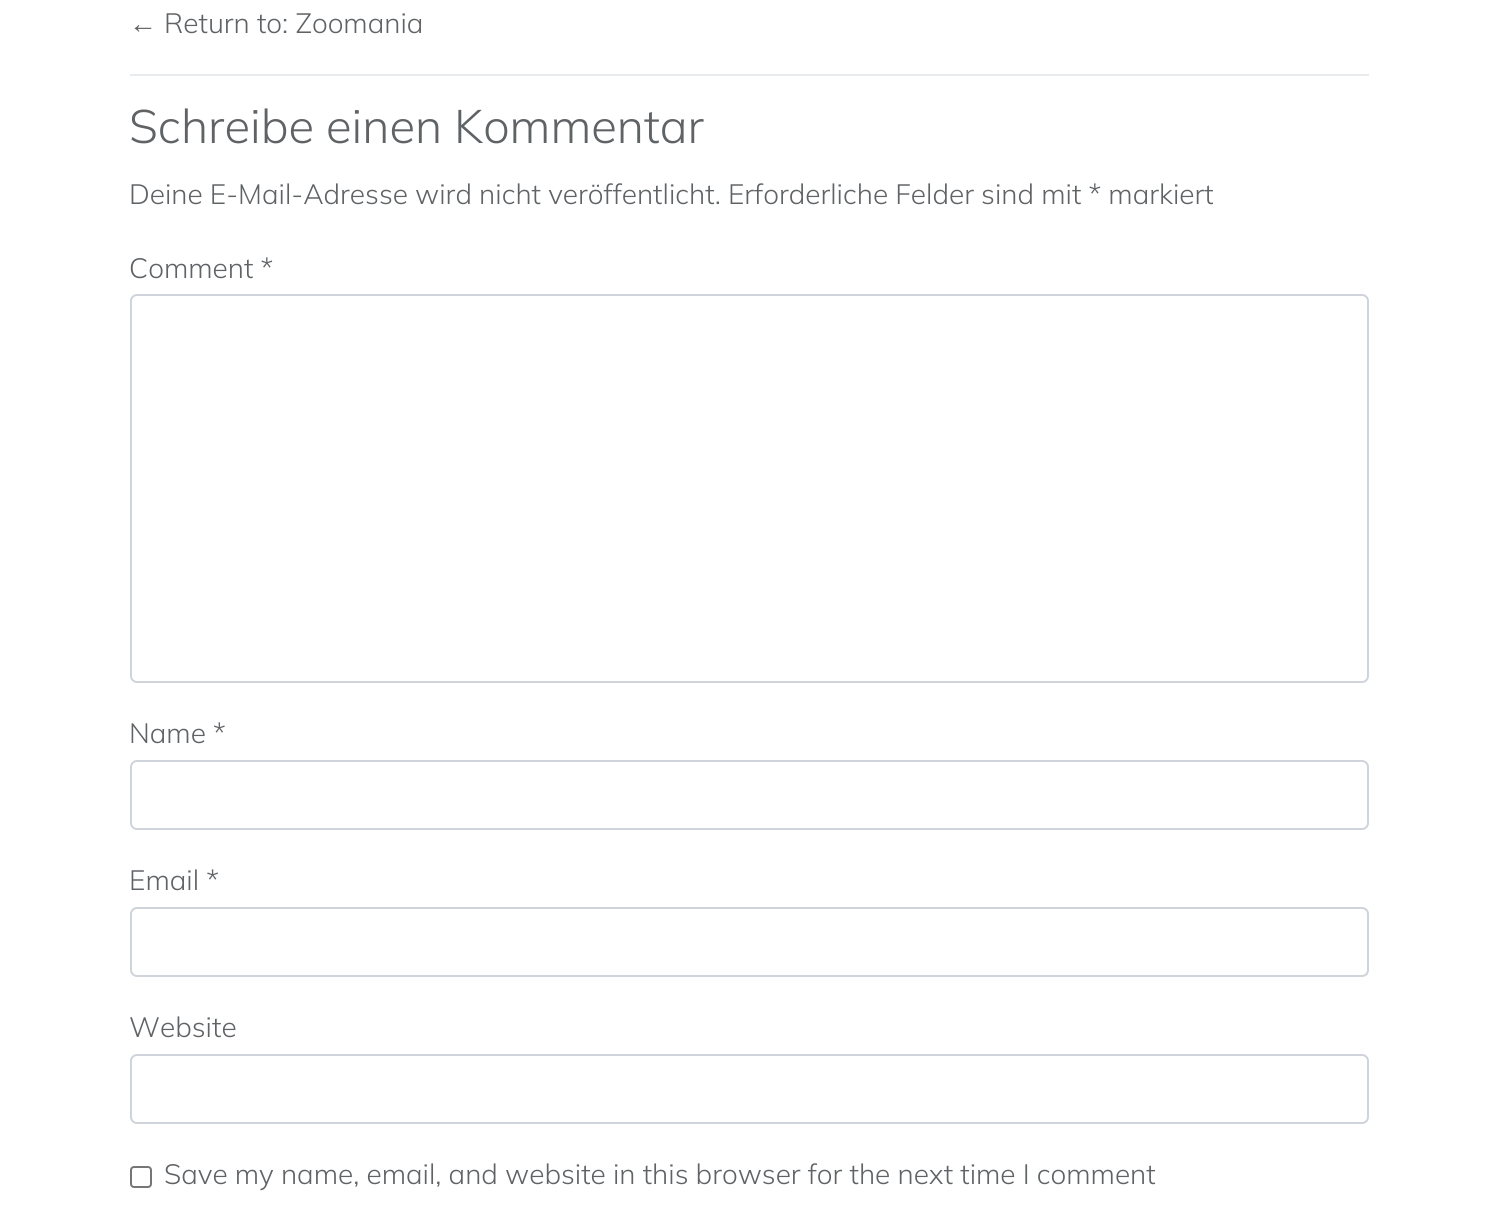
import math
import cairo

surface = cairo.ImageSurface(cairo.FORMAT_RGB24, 1496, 1219)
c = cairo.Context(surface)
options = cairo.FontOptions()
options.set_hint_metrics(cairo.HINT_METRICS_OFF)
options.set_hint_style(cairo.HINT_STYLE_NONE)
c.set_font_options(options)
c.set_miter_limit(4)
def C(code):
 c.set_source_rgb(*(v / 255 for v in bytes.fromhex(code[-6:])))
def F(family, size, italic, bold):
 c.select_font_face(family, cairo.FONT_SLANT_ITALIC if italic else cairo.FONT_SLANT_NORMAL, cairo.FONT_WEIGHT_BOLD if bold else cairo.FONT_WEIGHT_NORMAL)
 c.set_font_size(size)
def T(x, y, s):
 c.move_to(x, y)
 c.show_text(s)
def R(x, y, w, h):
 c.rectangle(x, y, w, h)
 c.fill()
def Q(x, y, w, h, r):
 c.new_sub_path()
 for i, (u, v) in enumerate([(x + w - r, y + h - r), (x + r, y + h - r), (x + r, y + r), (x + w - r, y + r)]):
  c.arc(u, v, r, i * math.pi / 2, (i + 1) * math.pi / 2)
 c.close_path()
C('ffffff')
c.paint()
C('e9ecef')
R(130,74,1239,2)
F('Liberation Serif',28,0,0)
C('606366')
T(129,33,'←')
F('Mulish Light',28,0,0)
T(164,33,'Return to: Zoomania')
F('Mulish Light',47,0,0)
T(129,143,'Schreibe einen Kommentar')
F('Mulish Light',28,0,0)
T(129,204,'Deine E-Mail-Adresse wird nicht veröffentlicht. Erforderliche Felder sind mit * markiert')
T(129,278,'Comment *')
Q(131,295,1237,387,6)
C('ced4da')
c.stroke()
C('606366')
T(129,743,'Name *')
Q(131,761,1237,68,6)
C('ced4da')
c.stroke()
C('606366')
T(129,890,'Email *')
Q(131,908,1237,68,6)
C('ced4da')
c.stroke()
C('606366')
T(129,1037,'Website')
Q(131,1055,1237,68,6)
C('ced4da')
c.stroke()
Q(131,1167,20,20,3)
C('767676')
c.stroke()
C('606366')
T(164,1184,'Save my name, email, and website in this browser for the next time I comment')
surface.write_to_png('o.png')
